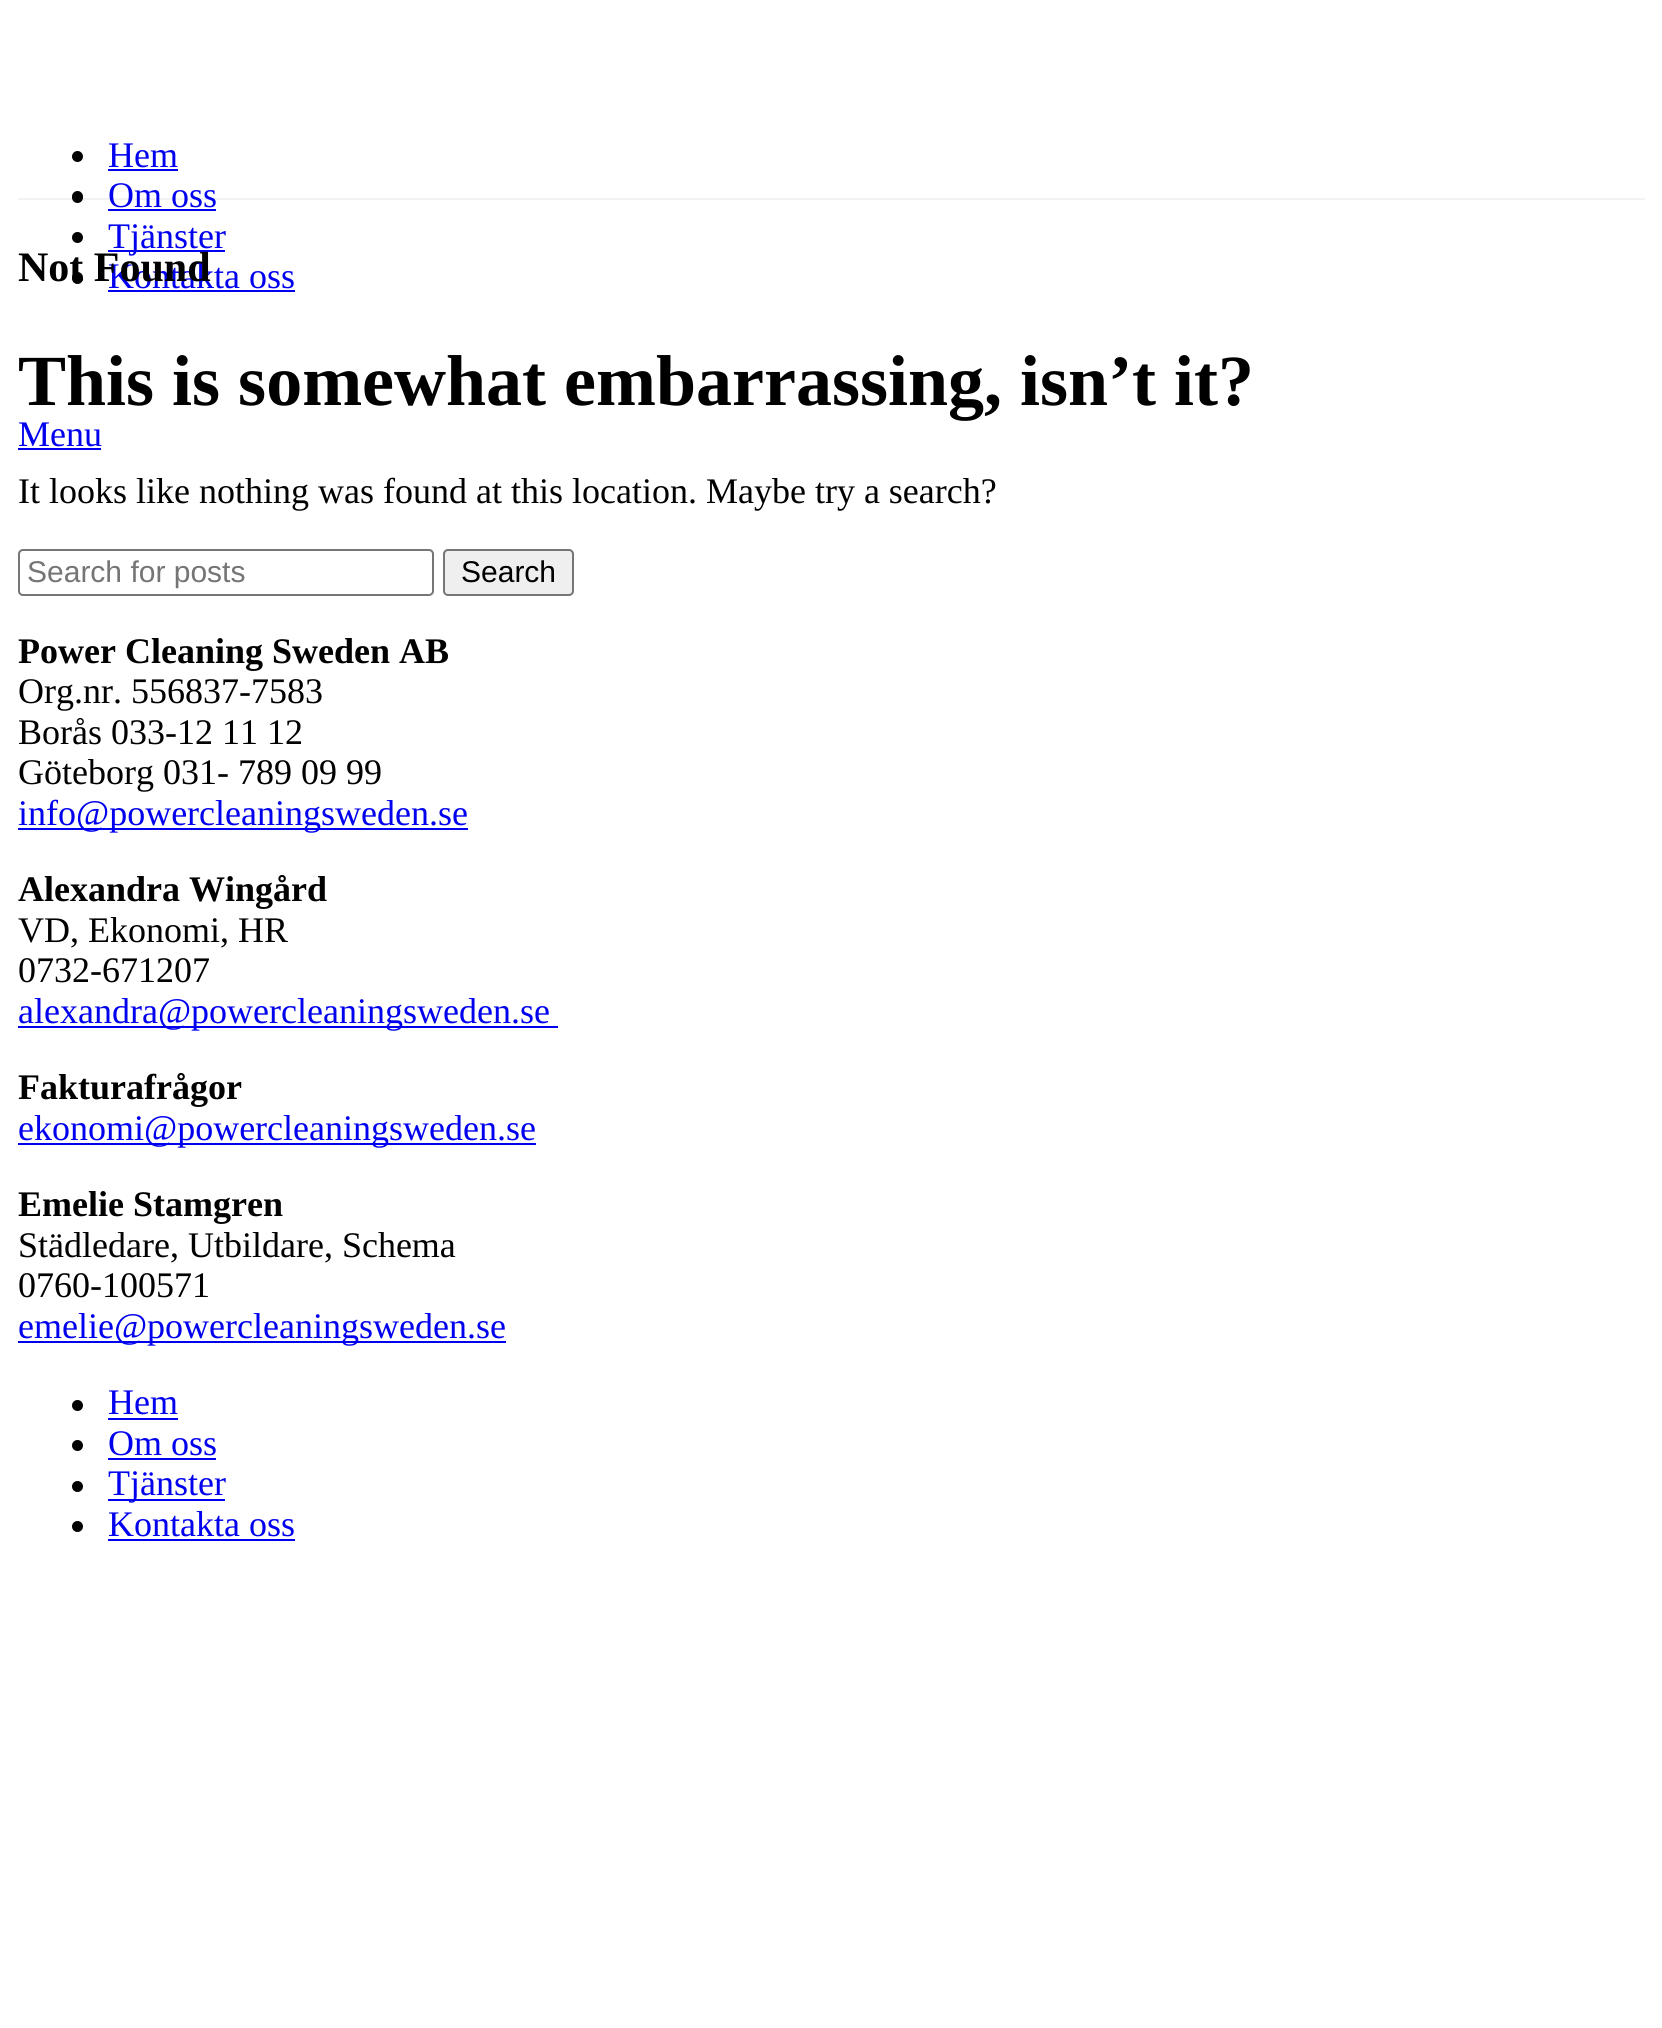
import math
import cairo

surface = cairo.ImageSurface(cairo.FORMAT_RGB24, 1662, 2028)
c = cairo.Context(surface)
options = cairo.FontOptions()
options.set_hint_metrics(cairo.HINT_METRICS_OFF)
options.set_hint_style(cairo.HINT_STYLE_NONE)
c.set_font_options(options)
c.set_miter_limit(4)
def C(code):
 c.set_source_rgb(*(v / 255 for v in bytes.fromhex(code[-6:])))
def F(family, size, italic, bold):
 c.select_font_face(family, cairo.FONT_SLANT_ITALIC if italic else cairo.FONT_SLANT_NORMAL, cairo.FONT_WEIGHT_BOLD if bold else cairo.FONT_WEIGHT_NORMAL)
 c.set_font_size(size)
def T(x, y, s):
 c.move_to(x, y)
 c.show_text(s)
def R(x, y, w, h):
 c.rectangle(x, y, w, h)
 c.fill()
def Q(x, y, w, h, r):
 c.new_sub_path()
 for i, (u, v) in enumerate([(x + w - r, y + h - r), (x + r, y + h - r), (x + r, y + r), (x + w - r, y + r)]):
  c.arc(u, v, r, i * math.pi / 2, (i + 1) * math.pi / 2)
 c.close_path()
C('ffffff')
c.paint()
C('f2f2f2')
R(18,198,1627,2)
C('000000')
c.arc(77.5,156.5,5.5,0,2 * math.pi)
c.fill()
F('Liberation Serif',36,0,0)
C('0000ee')
T(108,167,'Hem')
R(108,169,70,2)
C('000000')
Q(72,191,11,12,5.5)
c.fill()
C('0000ee')
T(108,207,'Om oss')
R(108,209,108,2)
C('000000')
c.new_path()
c.arc(77.5,237.5,5.5,0,2 * math.pi)
c.fill()
C('0000ee')
R(108,250,117,2)
T(108,248,'Tjänster')
C('000000')
Q(72,272,11,12,5.5)
c.fill()
C('0000ee')
T(108,288,'Kontakta oss')
R(108,290,187,2)
T(18,446,'Menu')
R(18,448,83,2)
F('Liberation Serif',42,0,1)
C('000000')
T(18,281,'Not Found')
F('Liberation Serif',72,0,1)
T(18,405,'This is somewhat embarrassing, isn’t it?')
F('Liberation Serif',36,0,0)
T(18,503,'It looks like nothing was found at this location. Maybe try a search?')
Q(19,550,414,45,4)
C('767676')
c.stroke()
F('Liberation Sans',30,0,0)
C('757575')
T(27,582,'Search for posts')
C('efefef')
Q(444,550,129,45,4)
c.fill_preserve()
C('767676')
c.stroke()
C('000000')
T(461,582,'Search')
F('Liberation Serif',36,0,1)
T(18,663,'Power Cleaning Sweden AB')
F('Liberation Serif',36,0,0)
T(18,703,'Org.nr. 556837-7583')
T(18,744,'Borås 033-12 11 12')
T(18,784,'Göteborg 031- 789 09 99')
C('0000ee')
R(18,828,450,2)
T(18,825,'info@powercleaningsweden.se')
F('Liberation Serif',36,0,1)
C('000000')
T(18,901,'Alexandra Wingård')
F('Liberation Serif',36,0,0)
T(18,942,'VD, Ekonomi, HR')
T(18,982,'0732-671207')
C('0000ee')
R(18,1026,540,2)
T(18,1023,'alexandra@powercleaningsweden.se')
F('Liberation Serif',36,0,1)
C('000000')
T(18,1099,'Fakturafrågor')
C('0000ee')
R(18,1143,518,2)
F('Liberation Serif',36,0,0)
T(18,1140,'ekonomi@powercleaningsweden.se')
F('Liberation Serif',36,0,1)
C('000000')
T(18,1216,'Emelie Stamgren')
F('Liberation Serif',36,0,0)
T(18,1257,'Städledare, Utbildare, Schema')
T(18,1297,'0760-100571')
C('0000ee')
R(18,1341,488,2)
T(18,1338,'emelie@powercleaningsweden.se')
C('000000')
c.new_path()
c.arc(77.5,1405.5,5.5,0,2 * math.pi)
c.fill()
C('0000ee')
T(108,1414,'Hem')
R(108,1418,70,2)
C('000000')
c.new_path()
c.arc(77.5,1445.5,5.5,0,2 * math.pi)
c.fill()
C('0000ee')
T(108,1455,'Om oss')
R(108,1458,108,2)
C('000000')
c.new_path()
c.arc(77.5,1486.5,5.5,0,2 * math.pi)
c.fill()
C('0000ee')
R(108,1499,117,2)
T(108,1495,'Tjänster')
C('000000')
c.new_path()
c.arc(77.5,1526.5,5.5,0,2 * math.pi)
c.fill()
C('0000ee')
T(108,1536,'Kontakta oss')
R(108,1539,187,2)
surface.write_to_png('o.png')
